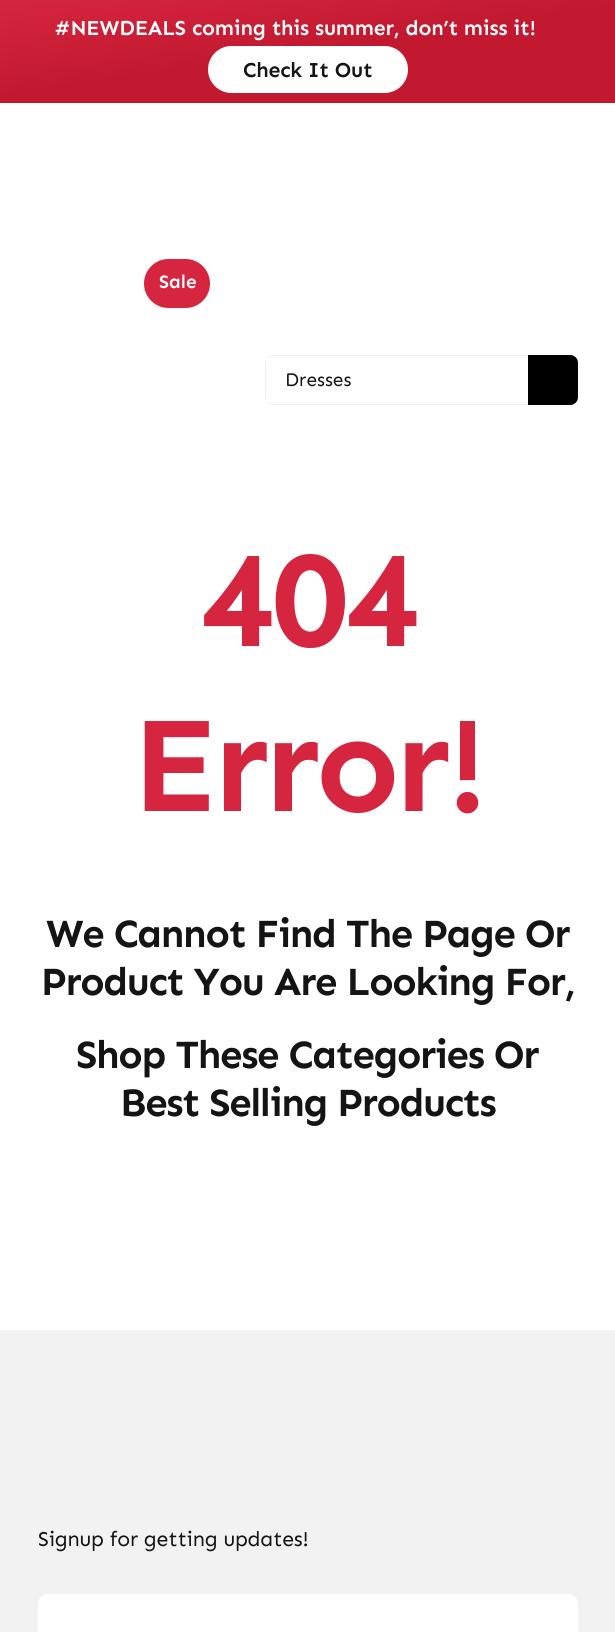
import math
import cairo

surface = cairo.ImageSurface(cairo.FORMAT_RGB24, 615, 1632)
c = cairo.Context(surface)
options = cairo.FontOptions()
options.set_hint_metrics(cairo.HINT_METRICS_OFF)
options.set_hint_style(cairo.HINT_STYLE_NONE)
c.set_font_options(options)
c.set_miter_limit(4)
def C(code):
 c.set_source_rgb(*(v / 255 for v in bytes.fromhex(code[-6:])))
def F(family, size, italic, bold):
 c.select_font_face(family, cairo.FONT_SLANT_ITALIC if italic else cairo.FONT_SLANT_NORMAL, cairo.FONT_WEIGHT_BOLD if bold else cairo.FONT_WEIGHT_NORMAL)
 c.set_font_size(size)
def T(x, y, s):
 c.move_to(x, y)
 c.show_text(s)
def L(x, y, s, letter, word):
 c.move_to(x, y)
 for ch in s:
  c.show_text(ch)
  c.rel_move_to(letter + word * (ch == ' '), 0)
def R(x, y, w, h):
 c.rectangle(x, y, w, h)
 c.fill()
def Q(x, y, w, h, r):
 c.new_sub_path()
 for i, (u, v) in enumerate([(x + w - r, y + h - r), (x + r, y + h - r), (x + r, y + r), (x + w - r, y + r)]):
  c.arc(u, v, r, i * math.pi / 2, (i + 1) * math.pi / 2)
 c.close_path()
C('ffffff')
c.paint()
gradient = cairo.LinearGradient(294,-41,321,144)
gradient.add_color_stop_rgba(0,0.839,0.145,0.243,1)
gradient.add_color_stop_rgba(.5,0.761,0.098,0.188,1)
c.set_source(gradient)
R(0,0,615,103)
F('Sen SemiBold',21.25,0,0)
C('ffffff')
L(54,35,'#NEWDEALS coming this summer, don’t miss it!',-.2,0)
Q(208,46,200,47,23.5)
c.fill()
C('141414')
L(243,77,'Check It Out',-.2,0)
C('d6253e')
Q(144,259,66,49,24.5)
c.fill()
F('Sen SemiBold',19,0,0)
C('ffffff')
T(159,288,'Sale')
C('ececec')
c.new_path()
c.move_to(272,356)
c.line_to(528,356)
c.line_to(528,355)
c.line_to(273,355)
c.curve_to(269,355,265,359,265,363)
c.line_to(265,397)
c.curve_to(265,401,269,405,273,405)
c.line_to(528,405)
c.line_to(528,404)
c.line_to(272,404)
c.curve_to(269,404,266,401,266,398)
c.line_to(266,362)
c.curve_to(266,359,269,356,272,356)
c.close_path()
c.fill()
F('Sen',19,0,0)
C('141414')
T(285,386,'Dresses')
C('000000')
c.new_path()
c.move_to(528,355)
c.line_to(570,355)
c.curve_to(574.5,355,578,358.5,578,363)
c.line_to(578,397)
c.curve_to(578,401.5,574.5,405,570,405)
c.line_to(528,405)
c.close_path()
c.fill()
F('Sen',137.5,0,1)
C('d6253e')
L(199,646,'404',-4.75,0)
L(132,811,'Error!',-4.75,0)
F('Sen',40,0,1)
C('141414')
L(46,947,'We Cannot Find The Page Or',-1.4,0)
L(41,995,'Product You Are Looking For,',-1.4,0)
L(76,1068,'Shop These Categories Or',-1.4,0)
L(120,1116,'Best Selling Products',-1.4,0)
C('f2f2f2')
R(0,1330,615,302)
F('Sen',21.25,0,0)
C('141414')
L(38,1546,'Signup for getting updates!',-.2,0)
C('ffffff')
Q(38.5,1594.5,539,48,9.5)
c.fill_preserve()
c.set_line_width(1)
c.stroke()
surface.write_to_png('o.png')
